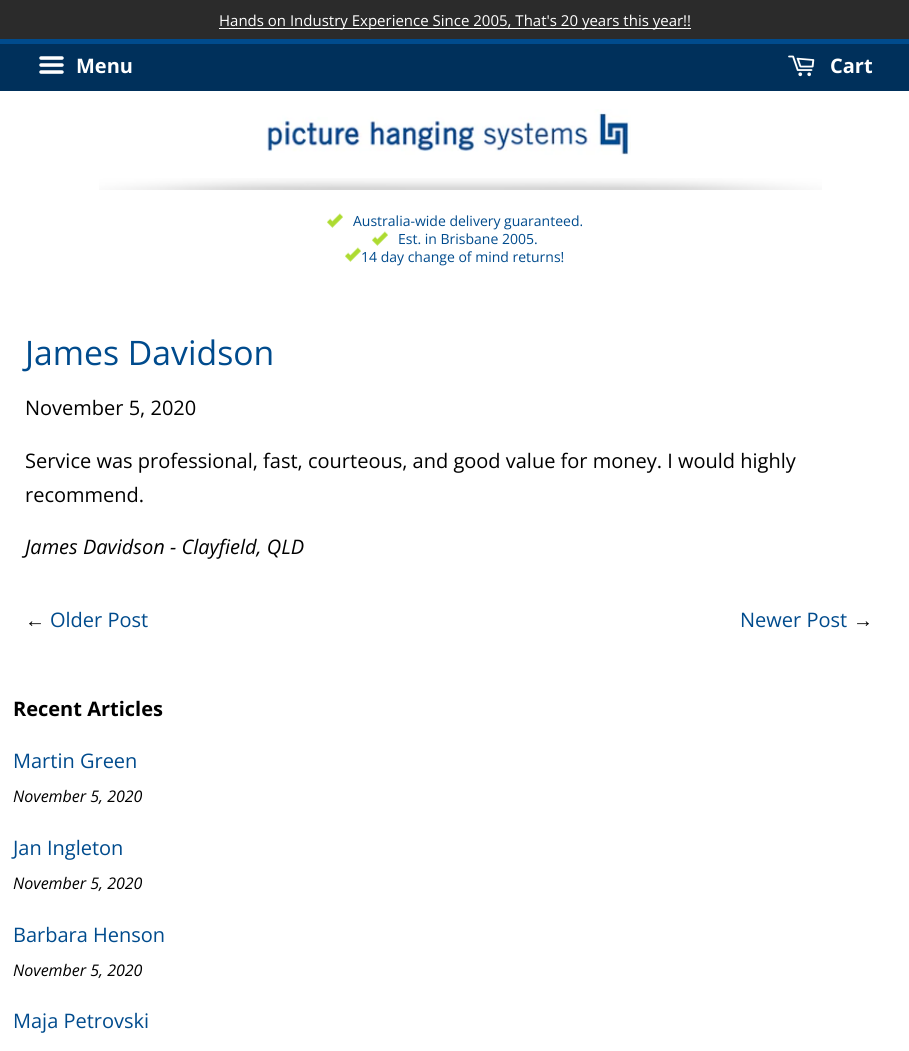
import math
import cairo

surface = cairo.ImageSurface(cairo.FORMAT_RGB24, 909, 1051)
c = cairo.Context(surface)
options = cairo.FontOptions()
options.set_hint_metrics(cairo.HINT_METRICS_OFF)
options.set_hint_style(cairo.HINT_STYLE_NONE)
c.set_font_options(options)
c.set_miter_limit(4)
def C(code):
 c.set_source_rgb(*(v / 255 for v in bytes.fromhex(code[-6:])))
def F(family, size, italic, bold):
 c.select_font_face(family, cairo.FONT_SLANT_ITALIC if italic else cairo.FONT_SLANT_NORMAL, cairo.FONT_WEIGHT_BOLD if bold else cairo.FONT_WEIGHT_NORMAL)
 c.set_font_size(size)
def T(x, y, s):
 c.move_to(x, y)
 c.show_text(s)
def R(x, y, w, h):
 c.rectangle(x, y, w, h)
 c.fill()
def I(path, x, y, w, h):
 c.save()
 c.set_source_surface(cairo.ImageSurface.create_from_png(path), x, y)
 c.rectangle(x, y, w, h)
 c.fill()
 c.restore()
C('ffffff')
c.paint()
C('2b2b2b')
R(0,0,909,39)
C('ffffff')
R(219,28,472,1)
F('Open Sans',15,0,0)
T(219,26,'Hands on Industry Experience Since 2005, That\'s 20 years this year!!')
C('004b8d')
R(0,39,909,5)
C('00305b')
R(0,44,909,47)
I('1.png',39,56,25,18)
F('Open Sans',20,0,1)
C('ffffff')
T(76,73,'Menu')
I('2.png',788,55,27,22)
T(830,73,'Cart')
I('3.png',267,109,364,46)
I('4.png',99,178,723,12)
I('5.png',327,213,16,15)
F('Open Sans',14,0,0)
C('004b8d')
T(353,226,'Australia-wide delivery guaranteed.')
I('5.png',372,231,16,15)
T(398,244,'Est. in Brisbane 2005.')
I('5.png',345,247,16,15)
T(361,262,'14 day change of mind returns!')
F('Open Sans',33.75,0,0)
T(25,365,'James Davidson')
F('Open Sans',20,0,0)
C('000000')
T(25,415,'November 5, 2020')
T(25,468,'Service was professional, fast, courteous, and good value for money. I would highly')
T(25,502,'recommend.')
F('Open Sans',20,1,0)
T(25,554,'James Davidson - Clayfield, QLD')
F('Liberation Sans',20,0,0)
T(25,627,'←')
F('Open Sans',20,0,0)
C('004b8d')
T(50,627,'Older Post')
T(740,627,'Newer Post')
F('Liberation Sans',20,0,0)
C('000000')
T(853,627,'→')
F('Open Sans',20,0,1)
T(13,716,'Recent Articles')
F('Open Sans',20,0,0)
C('004b8d')
T(13,768,'Martin Green')
F('Open Sans',16,1,0)
C('000000')
T(13,802,'November 5, 2020')
F('Open Sans',20,0,0)
C('004b8d')
T(13,855,'Jan Ingleton')
F('Open Sans',16,1,0)
C('000000')
T(13,889,'November 5, 2020')
F('Open Sans',20,0,0)
C('004b8d')
T(13,942,'Barbara Henson')
F('Open Sans',16,1,0)
C('000000')
T(13,976,'November 5, 2020')
F('Open Sans',20,0,0)
C('004b8d')
T(13,1028,'Maja Petrovski')
surface.write_to_png('o.png')
